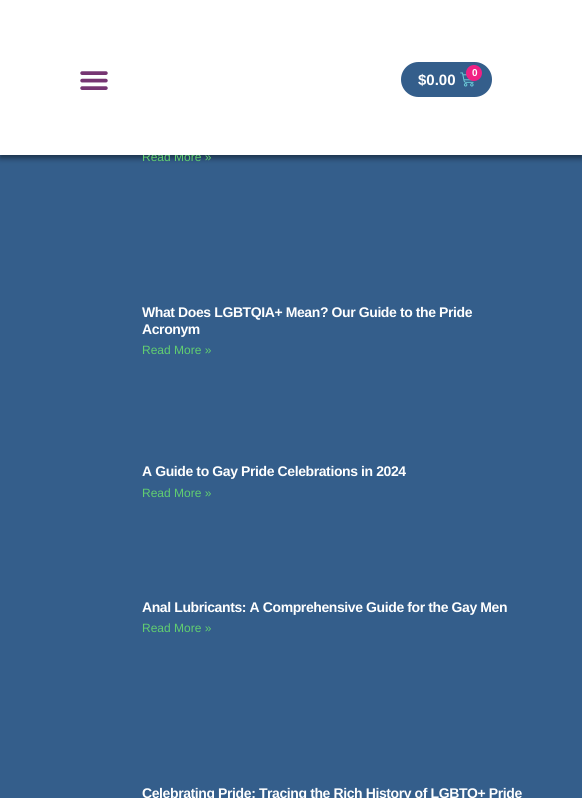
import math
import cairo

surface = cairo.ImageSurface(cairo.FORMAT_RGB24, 582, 798)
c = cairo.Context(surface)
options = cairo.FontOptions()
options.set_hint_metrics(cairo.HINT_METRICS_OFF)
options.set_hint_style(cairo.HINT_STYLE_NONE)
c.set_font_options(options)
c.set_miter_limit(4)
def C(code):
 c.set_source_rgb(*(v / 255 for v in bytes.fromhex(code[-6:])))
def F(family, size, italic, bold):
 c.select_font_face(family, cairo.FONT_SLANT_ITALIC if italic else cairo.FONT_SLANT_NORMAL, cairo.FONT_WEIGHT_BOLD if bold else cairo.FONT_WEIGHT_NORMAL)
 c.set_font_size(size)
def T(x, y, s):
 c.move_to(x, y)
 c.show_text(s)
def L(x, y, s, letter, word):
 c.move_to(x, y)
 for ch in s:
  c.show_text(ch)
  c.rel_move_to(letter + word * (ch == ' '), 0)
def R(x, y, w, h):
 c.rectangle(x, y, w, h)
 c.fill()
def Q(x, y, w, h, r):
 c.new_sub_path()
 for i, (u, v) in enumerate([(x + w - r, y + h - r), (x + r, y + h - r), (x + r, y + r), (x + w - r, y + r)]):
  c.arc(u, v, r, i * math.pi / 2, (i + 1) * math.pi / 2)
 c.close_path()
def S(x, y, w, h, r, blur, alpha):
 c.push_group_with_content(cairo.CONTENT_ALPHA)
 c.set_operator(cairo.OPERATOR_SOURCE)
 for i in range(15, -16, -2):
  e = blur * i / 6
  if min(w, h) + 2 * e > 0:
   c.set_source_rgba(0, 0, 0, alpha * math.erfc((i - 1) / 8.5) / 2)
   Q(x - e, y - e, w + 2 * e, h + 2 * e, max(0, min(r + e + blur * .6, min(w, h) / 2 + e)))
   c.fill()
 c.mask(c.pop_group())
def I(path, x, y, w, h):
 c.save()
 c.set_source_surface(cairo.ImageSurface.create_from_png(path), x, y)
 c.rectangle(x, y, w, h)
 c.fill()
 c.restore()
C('345e8b')
c.paint()
C('000000')
S(0,3,582,155,0,3,.5)
F('Liberation Sans',12,0,0)
C('61ce70')
T(142,161,'Read More »')
C('ffffff')
R(0,0,582,155)
I('1.png',80,71,28,19)
C('345e8b')
Q(401,62,91,35,17.5)
c.fill()
F('Liberation Sans',15,0,1)
C('ffffff')
T(418,85,'$0.00')
I('2.png',460,72,14,15)
C('f12184')
c.arc(474,73,8,0,2 * math.pi)
c.fill()
F('Liberation Sans',10,0,1)
C('ffffff')
T(472,76,'0')
F('Liberation Sans',14,0,1)
L(142,317,'What Does LGBTQIA+ Mean? Our Guide to the Pride',-.4,0)
L(142,334,'Acronym',-.4,0)
F('Liberation Sans',12,0,0)
C('61ce70')
T(142,354,'Read More »')
F('Liberation Sans',14,0,1)
C('ffffff')
L(142,476,'A Guide to Gay Pride Celebrations in 2024',-.4,0)
F('Liberation Sans',12,0,0)
C('61ce70')
T(142,497,'Read More »')
F('Liberation Sans',14,0,1)
C('ffffff')
L(142,612,'Anal Lubricants: A Comprehensive Guide for the Gay Men',-.4,0)
F('Liberation Sans',12,0,0)
C('61ce70')
T(142,632,'Read More »')
F('Liberation Sans',14,0,1)
C('ffffff')
L(142,798,'Celebrating Pride: Tracing the Rich History of LGBTQ+ Pride',-.4,0)
surface.write_to_png('o.png')
